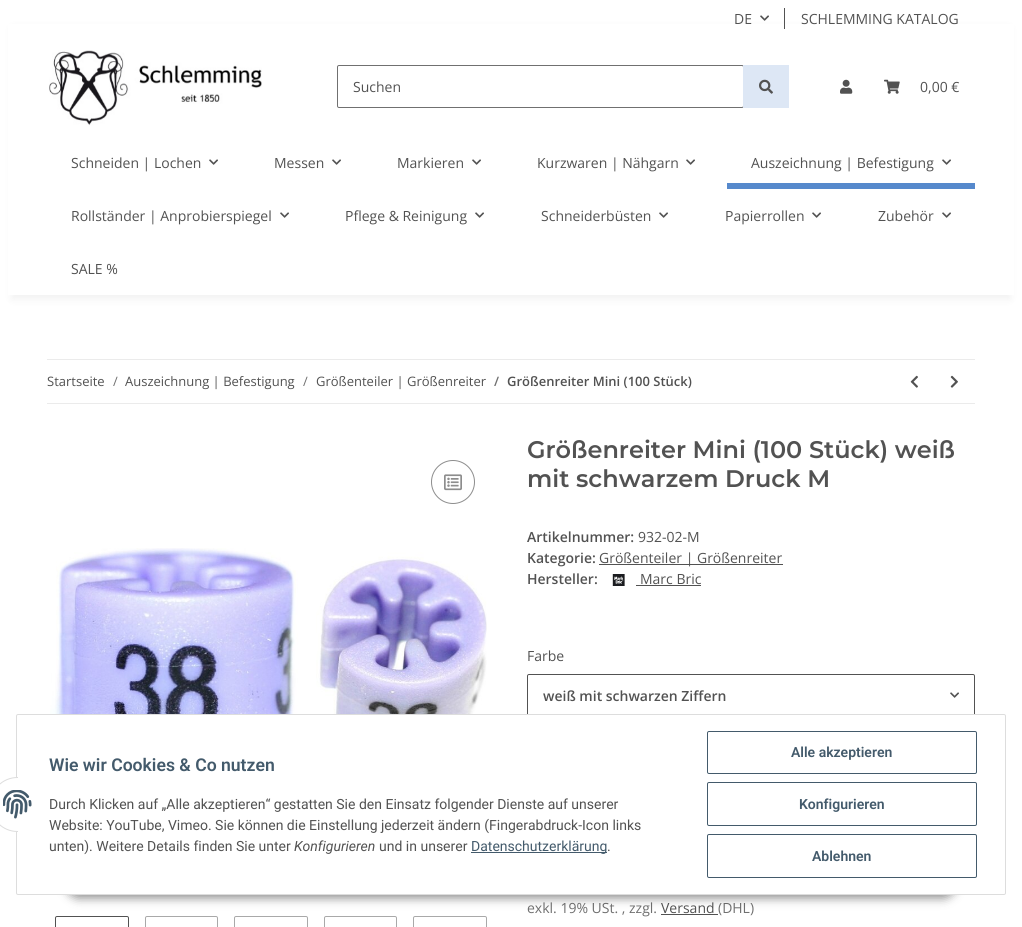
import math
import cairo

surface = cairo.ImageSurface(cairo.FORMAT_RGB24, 1022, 927)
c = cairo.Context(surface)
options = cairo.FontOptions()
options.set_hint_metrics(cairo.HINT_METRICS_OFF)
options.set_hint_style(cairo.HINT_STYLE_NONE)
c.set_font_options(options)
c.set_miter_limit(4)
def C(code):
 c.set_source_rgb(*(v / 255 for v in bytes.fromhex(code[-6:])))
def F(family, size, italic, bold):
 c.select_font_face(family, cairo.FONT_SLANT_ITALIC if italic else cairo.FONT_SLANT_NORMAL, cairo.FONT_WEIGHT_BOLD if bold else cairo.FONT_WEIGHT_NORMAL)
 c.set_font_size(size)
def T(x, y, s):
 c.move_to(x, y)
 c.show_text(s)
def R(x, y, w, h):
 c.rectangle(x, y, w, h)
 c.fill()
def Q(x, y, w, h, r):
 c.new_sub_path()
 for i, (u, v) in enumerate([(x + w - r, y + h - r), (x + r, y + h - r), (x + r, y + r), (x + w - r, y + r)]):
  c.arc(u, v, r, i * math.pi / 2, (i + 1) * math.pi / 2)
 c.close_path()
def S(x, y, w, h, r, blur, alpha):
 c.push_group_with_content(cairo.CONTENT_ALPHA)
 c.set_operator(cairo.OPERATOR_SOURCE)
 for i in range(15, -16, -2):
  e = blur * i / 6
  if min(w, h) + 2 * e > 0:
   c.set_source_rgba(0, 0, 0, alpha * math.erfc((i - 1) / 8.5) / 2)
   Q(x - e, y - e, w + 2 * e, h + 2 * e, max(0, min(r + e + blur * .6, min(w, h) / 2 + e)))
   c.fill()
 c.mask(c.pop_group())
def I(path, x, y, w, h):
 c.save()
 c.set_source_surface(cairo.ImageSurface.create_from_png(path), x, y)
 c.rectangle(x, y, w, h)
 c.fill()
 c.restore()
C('ffffff')
c.paint()
C('000000')
S(12,28,998,271,0,4.5,.06)
C('ffffff')
R(8,24,1006,271)
F('Open Sans',14,0,0)
C('525252')
T(734,24,'DE')
I('1.png',760,15,9,6)
R(784,8,1,21)
T(801,24,'SCHLEMMING KATALOG')
I('2.png',49,50,213,76)
Q(337.5,65.5,406,42,1.5)
C('707070')
c.set_line_width(1)
c.stroke()
C('525252')
T(353,92,'Suchen')
C('dde7f5')
R(743,65,46,43)
I('3.png',759,79,14,15)
I('4.png',840,79,13,15)
I('5.png',884,79,16,15)
C('525252')
T(920,92,'0,00 €')
T(71,168,'Schneiden | Lochen')
I('1.png',209,159,9,6)
T(274,168,'Messen')
I('1.png',332,159,9,6)
T(397,168,'Markieren')
I('1.png',472,159,9,6)
T(537,168,'Kurzwaren | Nähgarn')
I('1.png',686,159,9,6)
T(751,168,'Auszeichnung | Befestigung')
I('1.png',942,159,9,6)
C('5689cc')
R(727,183,248,6)
C('525252')
T(71,221,'Rollständer | Anprobierspiegel')
I('1.png',280,212,9,6)
T(345,221,'Pflege & Reinigung')
I('1.png',475,212,9,6)
T(541,221,'Schneiderbüsten')
I('1.png',659,212,9,6)
T(725,221,'Papierrollen')
I('1.png',812,212,9,6)
T(878,221,'Zubehör')
I('1.png',942,212,9,6)
T(71,274,'SALE %')
C('ebebeb')
R(47,359,928,1)
R(47,403,928,1)
F('Open Sans',13,0,0)
C('525252')
T(47,386,'Startseite')
C('707070')
T(113,386,'/')
C('525252')
T(125,386,'Auszeichnung | Befestigung')
C('707070')
T(303,386,'/')
C('525252')
T(316,386,'Größenteiler | Größenreiter')
F('Open Sans SemiBold',13,0,0)
C('707070')
T(494,386,'/')
C('525252')
T(507,386,'Größenreiter Mini (100 Stück)')
I('6.png',910,375,8,13)
I('7.png',950,375,8,13)
c.arc(453,482,21.5,0,2 * math.pi)
C('8d8d8d')
c.stroke()
I('8.png',444,474,18,17)
I('9.png',50,548,437,166)
Q(55.5,916.5,73,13,1.5)
C('525252')
c.stroke()
Q(145.5,916.5,72,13,1.5)
C('a9a9a9')
c.stroke()
Q(234.5,916.5,73,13,1.5)
c.stroke()
Q(324.5,916.5,72,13,1.5)
c.stroke()
Q(413.5,916.5,73,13,1.5)
c.stroke()
F('Montserrat SemiBold',24,0,0)
C('525252')
T(527,458,'Größenreiter Mini (100 Stück) weiß')
T(527,487,'mit schwarzem Druck M')
F('Open Sans SemiBold',14,0,0)
T(527,542,'Artikelnummer:')
F('Open Sans',14,0,0)
T(638,542,'932-02-M')
F('Open Sans SemiBold',14,0,0)
T(527,563,'Kategorie:')
R(599,564,184,1)
F('Open Sans',14,0,0)
T(599,563,'Größenteiler | Größenreiter')
F('Open Sans SemiBold',14,0,0)
T(527,584,'Hersteller:')
I('10.png',612,574,13,12)
F('Open Sans',14,0,0)
T(640,584,'Marc Bric')
R(636,585,65,1)
T(527,661,'Farbe')
Q(527.5,674.5,447,42,1.5)
c.stroke()
F('Open Sans SemiBold',14,0,0)
T(543,701,'weiß mit schwarzen Ziffern')
I('1.png',950,692,9,6)
F('Open Sans',14,0,0)
C('707070')
T(527,913,'exkl. 19% USt. , zzgl.')
C('525252')
T(661,913,'Versand')
C('707070')
T(718,913,'(DHL)')
C('525252')
R(661,914,57,1)
C('000000')
S(66,866,890,32,16,5,.45)
C('ffffff')
Q(16.5,714.5,989,180,1.5)
c.fill_preserve()
C('dddddd')
c.stroke()
C('ffffff')
c.arc(17.5,804.5,27,0,2 * math.pi)
c.fill_preserve()
C('dddddd')
c.stroke()
C('ffffff')
R(18,777,27,55)
I('11.png',3,790,29,29)
F('Roboto SemiBold',17.6,0,0)
C('435a6b')
T(49,771,'Wie wir Cookies & Co nutzen')
F('Roboto',14,0,0)
C('525252')
T(49,809,'Durch Klicken auf „Alle akzeptieren“ gestatten Sie den Einsatz folgender Dienste auf unserer')
T(49,830,'Website: YouTube, Vimeo. Sie können die Einstellung jederzeit ändern (Fingerabdruck-Icon links')
T(49,851,'unten). Weitere Details finden Sie unter')
F('Roboto',14,1,0)
T(294,851,'Konfigurieren')
F('Roboto',14,0,0)
T(379,851,'und in unserer')
C('435a6b')
R(471,852,136,1)
T(471,851,'Datenschutzerklärung')
C('525252')
T(607,851,'.')
Q(707.5,731.5,269,42,1.5)
C('435a6b')
c.stroke()
F('Roboto SemiBold',14,0,0)
T(791,757,'Alle akzeptieren')
Q(707.5,782.5,269,43,1.5)
c.stroke()
T(799,809,'Konfigurieren')
Q(707.5,834.5,269,43,1.5)
c.stroke()
T(812,861,'Ablehnen')
surface.write_to_png('o.png')
